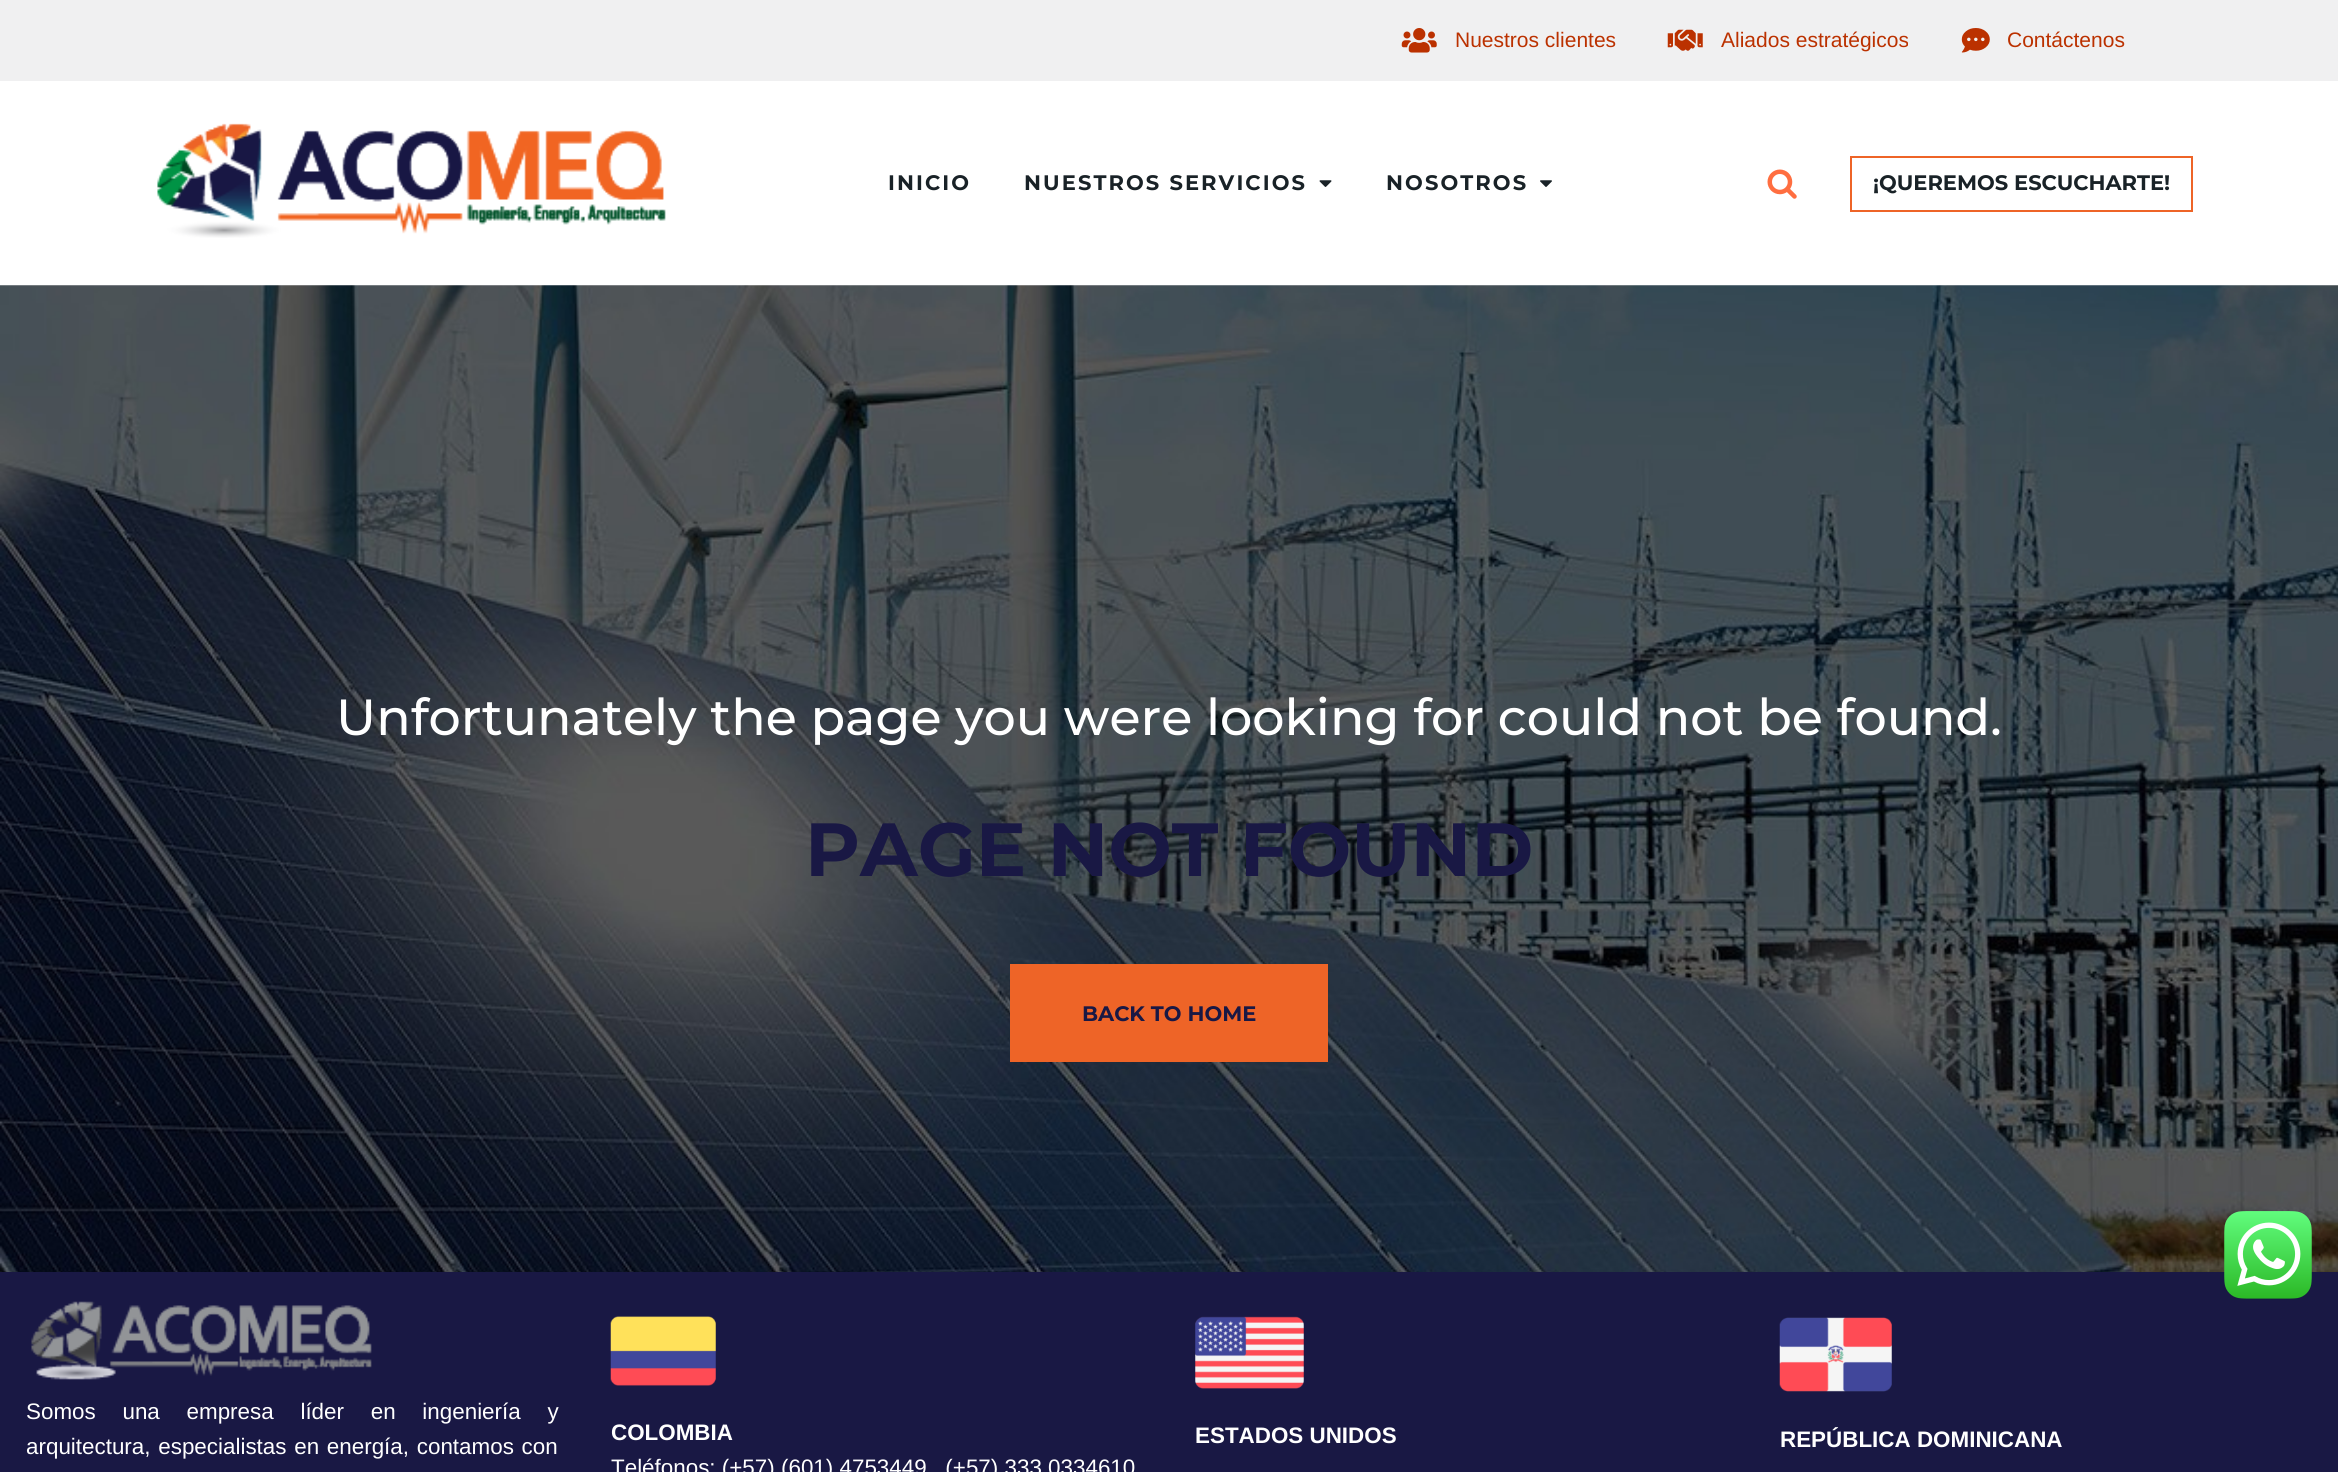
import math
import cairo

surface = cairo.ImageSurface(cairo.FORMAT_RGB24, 2338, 1472)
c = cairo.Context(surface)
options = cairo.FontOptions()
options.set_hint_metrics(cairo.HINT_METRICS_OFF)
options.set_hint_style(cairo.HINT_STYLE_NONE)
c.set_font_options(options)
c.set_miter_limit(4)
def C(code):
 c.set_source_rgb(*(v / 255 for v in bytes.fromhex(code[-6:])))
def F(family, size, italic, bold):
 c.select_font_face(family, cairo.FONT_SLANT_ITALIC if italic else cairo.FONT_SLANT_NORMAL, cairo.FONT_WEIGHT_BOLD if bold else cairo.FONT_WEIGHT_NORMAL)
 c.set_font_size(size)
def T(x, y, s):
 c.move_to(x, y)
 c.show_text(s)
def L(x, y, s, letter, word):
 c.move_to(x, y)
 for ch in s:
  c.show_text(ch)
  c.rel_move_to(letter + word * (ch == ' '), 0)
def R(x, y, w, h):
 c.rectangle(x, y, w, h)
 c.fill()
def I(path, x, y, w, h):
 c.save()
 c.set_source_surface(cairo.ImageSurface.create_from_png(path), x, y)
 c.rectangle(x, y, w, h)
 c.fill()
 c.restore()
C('ffffff')
c.paint()
C('f0f0f1')
R(0,0,2338,81)
I('1.png',1401,28,36,25)
F('Liberation Sans',21,0,0)
C('bb3100')
T(1455,47,'Nuestros clientes')
I('2.png',1667,29,36,22)
T(1721,47,'Aliados estratégicos')
I('3.png',1961,28,29,25)
T(2007,47,'Contáctenos')
I('4.png',157,123,509,115)
F('Montserrat',21,0,1)
C('192227')
L(888,190,'INICIO',2.1,0)
L(1024,190,'NUESTROS SERVICIOS',2.1,0)
I('5.png',1319,180,13,7)
L(1386,190,'NOSOTROS',2.1,0)
I('6.png',1540,180,12,7)
I('7.png',1767,169,30,30)
c.rectangle(1851,157,341,54)
C('ee6427')
c.stroke()
C('192227')
T(1873,190,'¡QUEREMOS ESCUCHARTE!')
I('8.png',0,285,2338,987)
F('Montserrat Medium',50.75,0,0)
C('ffffff')
T(336,735,'Unfortunately the page you were looking for could not be found.')
F('Montserrat',75.25,0,1)
C('191844')
T(805,876,'PAGE NOT FOUND')
C('ee6427')
R(1010,964,318,98)
F('Montserrat',21,0,1)
C('191844')
T(1082,1021,'BACK TO HOME')
R(0,1272,2338,200)
I('9.png',31,1301,341,79)
F('Liberation Sans',22.4,0,0)
C('ffffff')
L(26,1419,'Somos una empresa líder en ingeniería y',0,20.5)
L(26,1454,'arquitectura, especialistas en energía, contamos con',0,1.5)
I('10.png',610,1316,106,70)
F('Liberation Sans',22.4,0,1)
T(611,1440,'COLOMBIA')
F('Liberation Sans',22.4,0,0)
T(611,1475,'Teléfonos: (+57) (601) 4753449   (+57) 333 0334610')
I('11.png',1195,1316,109,73)
F('Liberation Sans',22.4,0,1)
T(1195,1443,'ESTADOS UNIDOS')
I('12.png',1779,1317,113,75)
T(1780,1447,'REPÚBLICA DOMINICANA')
I('13.png',2224,1211,88,88)
surface.write_to_png('o.png')
